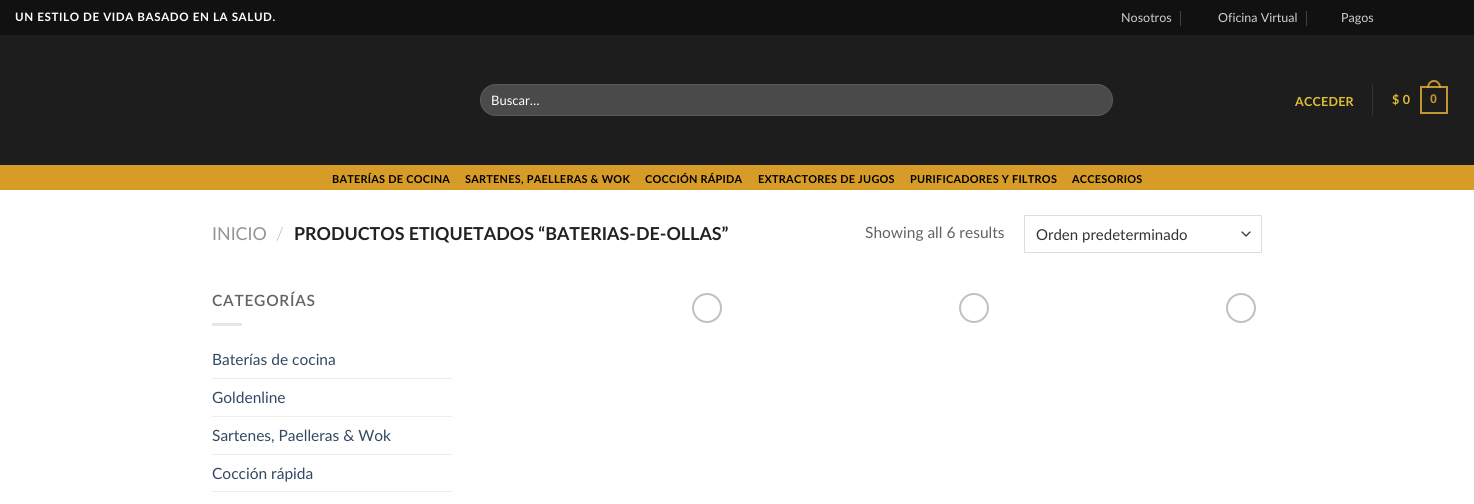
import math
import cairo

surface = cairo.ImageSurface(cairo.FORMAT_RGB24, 1474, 504)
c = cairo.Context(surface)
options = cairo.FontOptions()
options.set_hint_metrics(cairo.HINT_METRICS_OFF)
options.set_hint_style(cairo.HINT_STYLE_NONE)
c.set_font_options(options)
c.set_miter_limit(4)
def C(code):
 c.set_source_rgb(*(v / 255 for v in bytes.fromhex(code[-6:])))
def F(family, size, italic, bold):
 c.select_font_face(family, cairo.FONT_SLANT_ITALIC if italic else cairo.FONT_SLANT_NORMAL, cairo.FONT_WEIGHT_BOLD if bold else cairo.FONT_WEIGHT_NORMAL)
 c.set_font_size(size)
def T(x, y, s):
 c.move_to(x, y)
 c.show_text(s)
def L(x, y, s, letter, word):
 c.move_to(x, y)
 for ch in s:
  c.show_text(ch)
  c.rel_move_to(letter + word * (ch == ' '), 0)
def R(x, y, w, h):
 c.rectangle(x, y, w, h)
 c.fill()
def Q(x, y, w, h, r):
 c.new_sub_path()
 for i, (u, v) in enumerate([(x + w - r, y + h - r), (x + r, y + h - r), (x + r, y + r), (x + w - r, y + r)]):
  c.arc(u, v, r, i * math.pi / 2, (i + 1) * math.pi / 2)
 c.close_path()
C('ffffff')
c.paint()
C('111111')
R(0,0,1474,35)
F('Lato',11.6,0,1)
C('ffffff')
L(15,21,'UN ESTILO DE VIDA BASADO EN LA SALUD.',.6,0)
F('Lato',12.5,0,0)
C('cfcfcf')
T(1121,22,'Nosotros')
C('414141')
R(1180,11,1,15)
C('cfcfcf')
T(1218,22,'Oficina Virtual')
C('414141')
R(1306,11,1,15)
C('cfcfcf')
T(1341,22,'Pagos')
C('1d1d1d')
R(0,35,1474,130)
C('4a4a4a')
Q(480,84,633,32,16)
c.fill()
Q(480.5,84.5,632,31,15.5)
c.set_source_rgba(1,1,1,0.09)
c.set_line_width(1)
c.stroke()
F('Lato',13,0,0)
C('ffffff')
T(491,105,'Buscar…')
F('Lato',12.5,0,1)
C('e0bd33')
L(1295,106,'ACCEDER',.25,0)
C('343434')
R(1372,85,1,30)
C('e0bd33')
L(1392,104,'$ 0',.25,0)
c.rectangle(1421,87,26,26)
C('c19530')
c.set_line_width(2)
c.stroke()
c.set_source_rgba(0.886,0.682,0.204,0.83)
c.set_fill_rule(cairo.FILL_RULE_EVEN_ODD)
c.new_path()
c.move_to(1434,80)
c.curve_to(1438.5,80,1441,84,1441,88)
c.line_to(1427,88)
c.curve_to(1427,84,1429.5,80,1434,80)
c.close_path()
c.move_to(1434,82)
c.curve_to(1437.5,82,1439,85,1439,88)
c.line_to(1429,88)
c.curve_to(1429,85,1430.5,82,1434,82)
c.close_path()
c.fill()
F('Liberation Sans',12.5,0,1)
C('c19530')
L(1430,103,'0',.25,0)
C('d79c28')
R(0,165,1474,25)
F('Lato',10.9,0,1)
C('000000')
L(332,183,'BATERÍAS DE COCINA',.25,0)
L(465,183,'SARTENES, PAELLERAS & WOK',.25,0)
L(645,183,'COCCIÓN RÁPIDA',.25,0)
L(758,183,'EXTRACTORES DE JUGOS',.25,0)
L(910,183,'PURIFICADORES Y FILTROS',.25,0)
L(1072,183,'ACCESORIOS',.25,0)
F('Lato',17.85,0,0)
C('949494')
T(212,240,'INICIO')
F('Lato Light',17.85,0,0)
C('b2b2b2')
T(276,240,'/')
F('Lato',17.85,0,1)
C('222222')
T(294,240,'PRODUCTOS ETIQUETADOS “BATERIAS-DE-OLLAS”')
F('Lato',15.5,0,0)
C('636363')
T(865,238,'Showing all 6 results')
c.new_path()
c.move_to(1242,232)
c.line_to(1246,236)
c.line_to(1250,232)
C('333333')
c.set_line_width(1.3)
c.set_line_cap(cairo.LINE_CAP_ROUND)
c.set_line_join(cairo.LINE_JOIN_ROUND)
c.stroke()
c.rectangle(1024.5,215.5,237,37)
C('dddddd')
c.set_line_width(1)
c.set_line_cap(cairo.LINE_CAP_BUTT)
c.set_line_join(cairo.LINE_JOIN_MITER)
c.stroke()
F('Lato',15,0,0)
C('333333')
T(1036,240,'Orden predeterminado')
F('Lato SemiBold',15.5,0,0)
C('636363')
L(212,306,'CATEGORÍAS',.75,0)
C('e6e6e6')
R(212,323,30,3)
F('Lato',15.5,0,0)
C('334862')
T(212,365,'Baterías de cocina')
C('ececec')
R(212,378,240,1)
C('334862')
T(212,403,'Goldenline')
C('ececec')
R(212,416,240,1)
C('334862')
T(212,441,'Sartenes, Paelleras & Wok')
C('ececec')
R(212,454,240,1)
C('334862')
T(212,479,'Cocción rápida')
C('ececec')
R(212,491,240,1)
c.new_path()
c.arc(707,308,14,0,2 * math.pi)
C('c0c0c0')
c.set_line_width(2)
c.stroke()
c.arc(974,308,14,0,2 * math.pi)
c.stroke()
c.arc(1241,308,14,0,2 * math.pi)
c.stroke()
surface.write_to_png('o.png')
